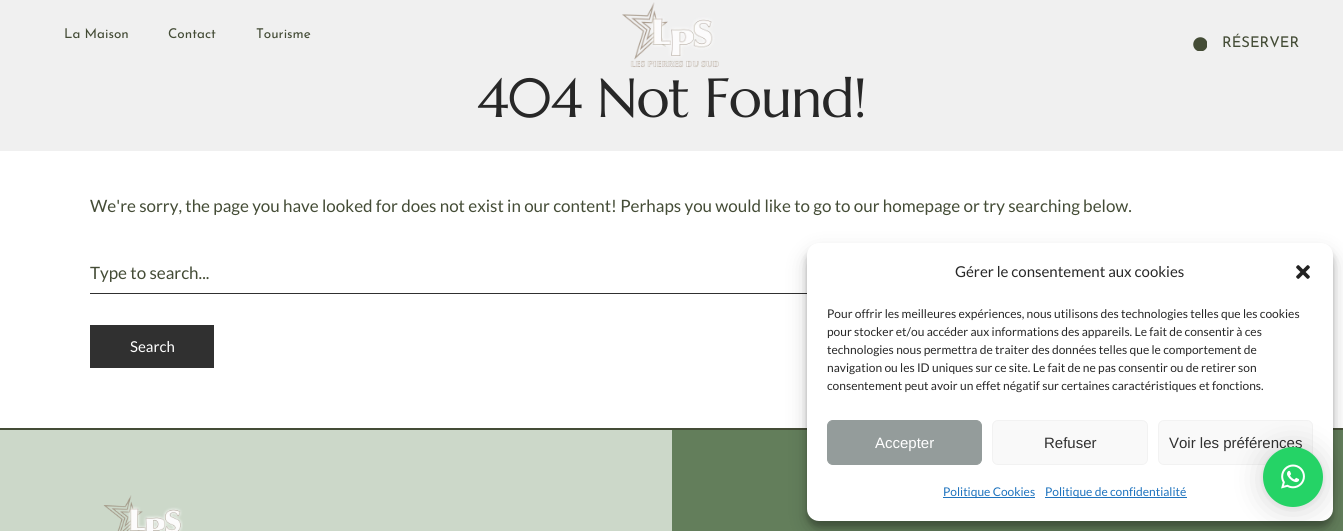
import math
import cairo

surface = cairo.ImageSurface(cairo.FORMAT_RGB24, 1343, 531)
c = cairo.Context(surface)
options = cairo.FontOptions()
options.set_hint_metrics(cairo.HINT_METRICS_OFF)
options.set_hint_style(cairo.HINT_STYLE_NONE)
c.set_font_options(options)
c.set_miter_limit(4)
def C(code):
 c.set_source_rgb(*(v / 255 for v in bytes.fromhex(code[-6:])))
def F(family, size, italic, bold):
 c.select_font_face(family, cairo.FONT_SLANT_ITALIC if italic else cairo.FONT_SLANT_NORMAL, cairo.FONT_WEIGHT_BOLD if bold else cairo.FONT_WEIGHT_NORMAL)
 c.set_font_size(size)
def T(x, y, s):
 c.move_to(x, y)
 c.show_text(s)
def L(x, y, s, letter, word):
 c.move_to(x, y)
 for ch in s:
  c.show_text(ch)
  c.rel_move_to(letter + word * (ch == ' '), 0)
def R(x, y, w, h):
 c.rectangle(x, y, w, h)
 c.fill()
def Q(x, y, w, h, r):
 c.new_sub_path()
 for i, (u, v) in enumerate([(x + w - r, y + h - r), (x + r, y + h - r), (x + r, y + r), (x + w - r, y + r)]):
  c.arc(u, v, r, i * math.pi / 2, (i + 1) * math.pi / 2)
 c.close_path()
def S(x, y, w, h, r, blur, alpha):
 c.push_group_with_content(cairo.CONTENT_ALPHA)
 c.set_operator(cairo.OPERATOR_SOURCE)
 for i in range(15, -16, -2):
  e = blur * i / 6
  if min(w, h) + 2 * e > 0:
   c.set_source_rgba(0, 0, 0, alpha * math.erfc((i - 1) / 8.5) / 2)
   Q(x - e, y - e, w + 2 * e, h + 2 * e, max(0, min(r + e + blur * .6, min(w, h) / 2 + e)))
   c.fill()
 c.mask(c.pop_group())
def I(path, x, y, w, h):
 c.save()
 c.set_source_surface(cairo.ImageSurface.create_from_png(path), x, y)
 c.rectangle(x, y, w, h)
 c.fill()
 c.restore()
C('ffffff')
c.paint()
C('f0f0f0')
R(0,0,1343,151)
F('Josefin Sans',13.5,0,0)
C('444c36')
T(64,38,'La Maison')
T(168,38,'Contact')
T(256,38,'Tourisme')
I('1.png',622,2,97,66)
I('2.png',1193,37,14,14)
F('Josefin Sans',14.75,0,0)
T(1222,47,'RÉSERVER')
F('Marcellus',55,0,0)
C('272727')
L(477,117,'404 Not Found!',-1,0)
F('Lato',17,0,0)
C('444c36')
T(90,212,'We\'re sorry, the page you have looked for does not exist in our content! Perhaps you would like to go to our homepage or try searching below.')
C('303030')
R(90,293,717,1)
C('444c36')
T(90,279,'Type to search...')
C('303030')
R(90,325,124,43)
F('Lato',15,0,0)
C('ffffff')
T(130,352,'Search')
C('444c36')
R(0,428,1343,2)
C('637e5b')
R(672,430,671,101)
C('000000')
S(807,249,526,278,12,3,.23)
S(807,253,526,278,12,10,.19)
C('ffffff')
Q(807,243,526,278,12)
c.fill()
C('272727')
T(955,277,'Gérer le consentement aux cookies')
I('3.png',1296,265,14,14)
F('Lato',12,0,0)
T(827,318,'Pour offrir les meilleures expériences, nous utilisons des technologies telles que les cookies')
T(827,336,'pour stocker et/ou accéder aux informations des appareils. Le fait de consentir à ces')
T(827,354,'technologies nous permettra de traiter des données telles que le comportement de')
T(827,372,'navigation ou les ID uniques sur ce site. Le fait de ne pas consentir ou de retirer son')
T(827,390,'consentement peut avoir un effet négatif sur certaines caractéristiques et fonctions.')
C('949c9b')
Q(827.5,420.5,154,44,5.5)
c.fill_preserve()
c.set_line_width(1)
c.stroke()
F('Liberation Sans',15,0,0)
C('ffffff')
T(875,448,'Accepter')
C('f9f9f9')
Q(992.5,420.5,155,44,5.5)
c.fill_preserve()
C('f2f2f2')
c.stroke()
C('303030')
T(1044,448,'Refuser')
C('f9f9f9')
Q(1158.5,420.5,154,44,5.5)
c.fill_preserve()
C('f2f2f2')
c.stroke()
C('303030')
T(1169,448,'Voir les préférences')
C('1e73be')
R(943,497,92,1)
F('Lato',12,0,0)
T(943,496,'Politique Cookies')
R(1045,497,142,1)
T(1045,496,'Politique de confidentialité')
C('000000')
S(1263,449,60,60,30,16,.16)
S(1263,448,60,60,30,3,.06)
C('25d366')
c.arc(1293,477,30,0,2 * math.pi)
c.fill()
I('4.png',1281,464,24,25)
C('ccd8c9')
R(0,430,672,101)
I('5.png',103,495,80,36)
surface.write_to_png('o.png')
